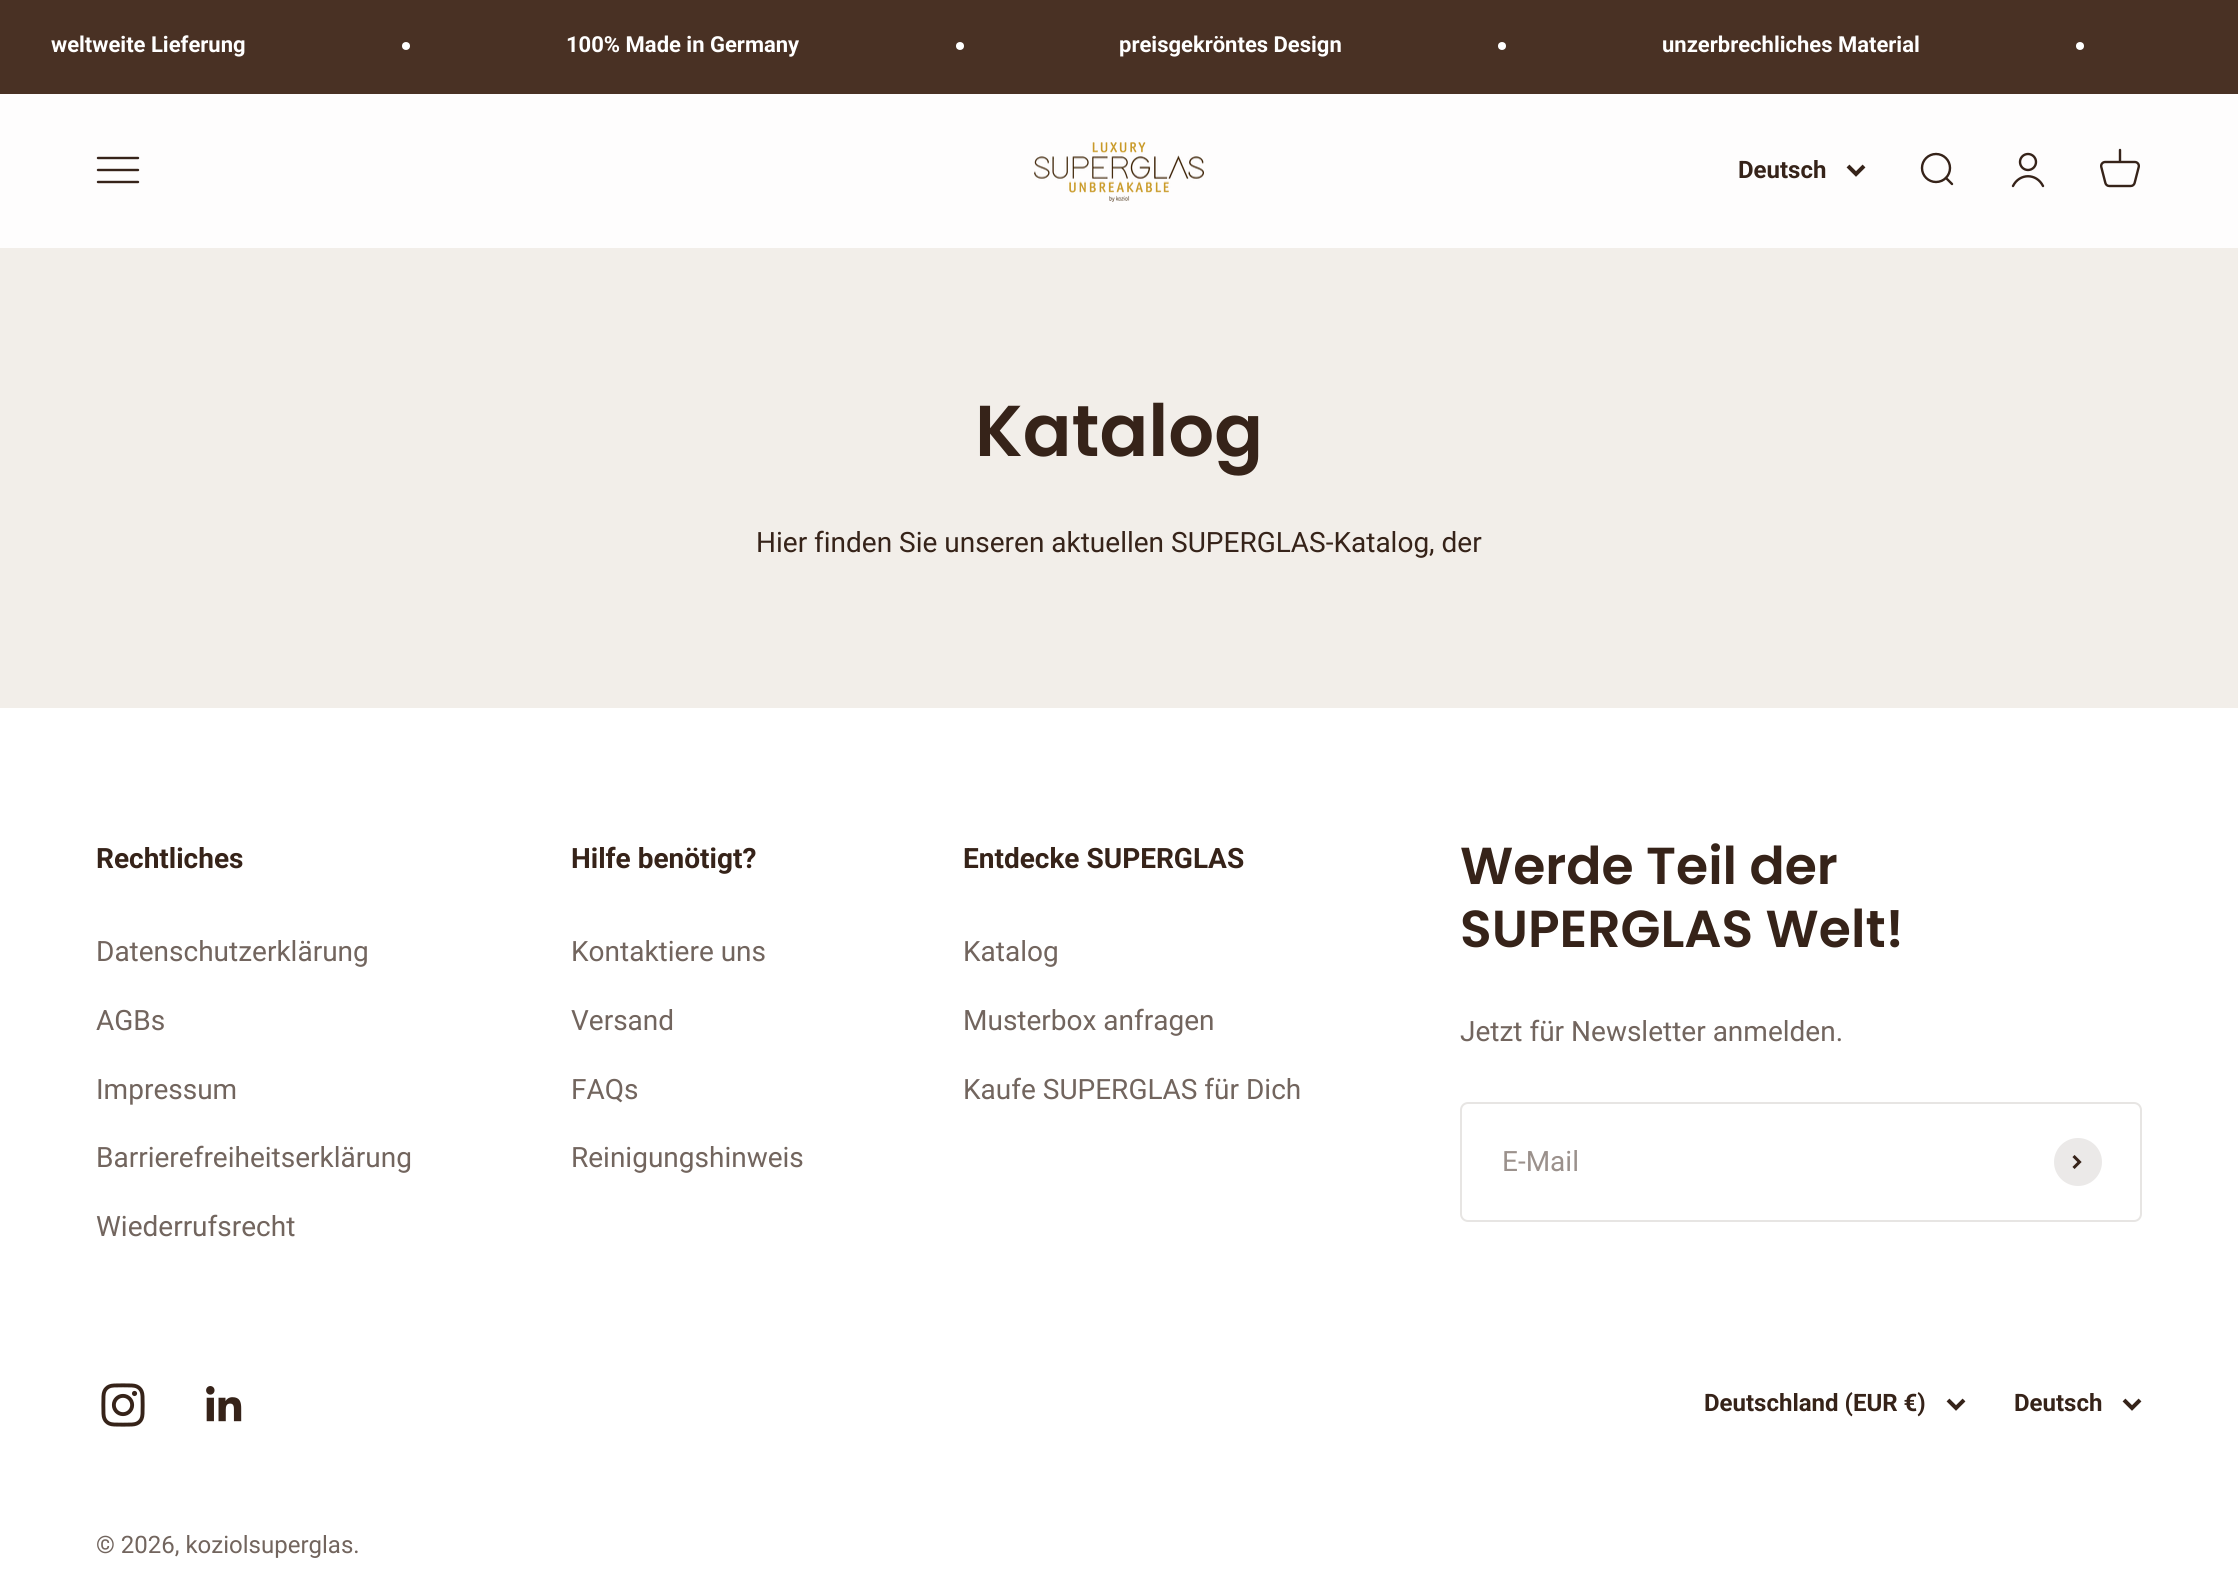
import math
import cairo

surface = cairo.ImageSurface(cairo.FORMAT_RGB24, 2238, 1595)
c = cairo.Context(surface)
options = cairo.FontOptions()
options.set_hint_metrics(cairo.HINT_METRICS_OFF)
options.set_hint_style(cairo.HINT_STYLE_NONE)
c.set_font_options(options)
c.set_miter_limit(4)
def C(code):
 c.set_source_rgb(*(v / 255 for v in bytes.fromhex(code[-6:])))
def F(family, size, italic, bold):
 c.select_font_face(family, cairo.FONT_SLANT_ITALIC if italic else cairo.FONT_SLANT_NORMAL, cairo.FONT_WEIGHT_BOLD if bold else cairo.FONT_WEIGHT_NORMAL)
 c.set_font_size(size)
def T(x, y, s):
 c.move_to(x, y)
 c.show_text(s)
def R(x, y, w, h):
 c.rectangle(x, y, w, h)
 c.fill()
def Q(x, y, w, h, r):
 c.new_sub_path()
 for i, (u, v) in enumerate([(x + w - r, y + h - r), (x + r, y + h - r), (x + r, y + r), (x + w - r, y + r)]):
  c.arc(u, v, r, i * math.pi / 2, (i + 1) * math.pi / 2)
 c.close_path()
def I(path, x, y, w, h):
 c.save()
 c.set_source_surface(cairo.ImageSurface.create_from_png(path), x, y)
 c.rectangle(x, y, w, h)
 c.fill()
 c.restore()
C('f2eee9')
c.paint()
C('493124')
R(0,0,2238,94)
F('Roboto',22,0,1)
C('ffffff')
T(51,52,'weltweite Lieferung')
c.new_path()
c.arc(406,46,4,0,2 * math.pi)
c.fill()
T(566,52,'100% Made in Germany')
c.new_path()
c.arc(960,46,4,0,2 * math.pi)
c.fill()
T(1119,52,'preisgekröntes Design')
c.new_path()
c.arc(1502,46,4,0,2 * math.pi)
c.fill()
T(1662,52,'unzerbrechliches Material')
c.new_path()
c.arc(2080,46,4,0,2 * math.pi)
c.fill()
C('fefdfd')
R(0,94,2238,154)
c.new_path()
c.move_to(98,158)
c.line_to(138,158)
c.move_to(98,170)
c.line_to(138,170)
c.move_to(98,182)
c.line_to(138,182)
C('362319')
c.set_line_width(2.4)
c.set_line_cap(cairo.LINE_CAP_ROUND)
c.stroke()
I('1.png',1034,142,170,60)
F('Roboto',24,0,1)
T(1738,178,'Deutsch')
c.new_path()
c.move_to(1848,166)
c.line_to(1856,174)
c.line_to(1864,166)
c.set_line_width(4)
c.set_line_cap(cairo.LINE_CAP_BUTT)
c.stroke()
c.arc(1936,168,14,0,2 * math.pi)
c.set_line_width(2.4)
c.stroke()
c.new_path()
c.move_to(1946,178)
c.line_to(1952,184)
c.set_line_cap(cairo.LINE_CAP_ROUND)
c.set_line_join(cairo.LINE_JOIN_ROUND)
c.stroke()
c.arc(2028,162,8,0,2 * math.pi)
c.set_line_cap(cairo.LINE_CAP_BUTT)
c.set_line_join(cairo.LINE_JOIN_MITER)
c.stroke()
c.new_path()
c.move_to(2013,186)
c.curve_to(2019.5,173,2036.5,173,2043,186)
c.set_line_cap(cairo.LINE_CAP_ROUND)
c.stroke()
I('2.png',2100,148,40,40)
F('Poppins SemiBold',72,0,0)
T(975,456,'Katalog')
F('Roboto',28,0,0)
T(756,552,'Hier finden Sie unseren aktuellen SUPERGLAS-Katalog, der')
C('ffffff')
R(0,708,2238,887)
F('Roboto',28,0,1)
C('362319')
T(96,868,'Rechtliches')
F('Roboto',28,0,0)
C('72655e')
T(96,961,'Datenschutzerklärung')
T(96,1030,'AGBs')
T(96,1099,'Impressum')
T(96,1167,'Barrierefreiheitserklärung')
T(96,1236,'Wiederrufsrecht')
F('Roboto',28,0,1)
C('362319')
T(571,868,'Hilfe benötigt?')
F('Roboto',28,0,0)
C('72655e')
T(571,961,'Kontaktiere uns')
T(571,1030,'Versand')
T(571,1099,'FAQs')
T(571,1167,'Reinigungshinweis')
F('Roboto',28,0,1)
C('362319')
T(963,868,'Entdecke SUPERGLAS')
F('Roboto',28,0,0)
C('72655e')
T(963,961,'Katalog')
T(963,1030,'Musterbox anfragen')
T(963,1099,'Kaufe SUPERGLAS für Dich')
F('Poppins SemiBold',52,0,0)
C('362319')
T(1460,884,'Werde Teil der')
T(1460,947,'SUPERGLAS Welt!')
F('Roboto',28,0,0)
C('72655e')
T(1460,1041,'Jetzt für Newsletter anmelden.')
Q(1461,1103,680,118,7)
C('e7e5e3')
c.set_line_width(2)
c.set_line_cap(cairo.LINE_CAP_BUTT)
c.stroke()
C('9b918c')
T(1502,1171,'E-Mail')
C('ebe9e8')
c.new_path()
c.arc(2078,1162,24,0,2 * math.pi)
c.fill()
c.new_path()
c.move_to(2073.5,1168)
c.line_to(2079.5,1162)
c.line_to(2073.5,1156)
C('362319')
c.set_line_width(3)
c.stroke()
I('3.png',101,1383,44,44)
I('4.png',206,1386,36,36)
F('Roboto',24,0,1)
T(1704,1411,'Deutschland (EUR €)')
c.new_path()
c.move_to(1948,1400)
c.line_to(1956,1408)
c.line_to(1964,1400)
c.set_line_width(4)
c.stroke()
T(2014,1411,'Deutsch')
c.new_path()
c.move_to(2124,1400)
c.line_to(2132,1408)
c.line_to(2140,1400)
c.stroke()
F('Roboto',24,0,0)
C('72655e')
T(96,1553,'© 2026, koziolsuperglas.')
surface.write_to_png('o.png')
